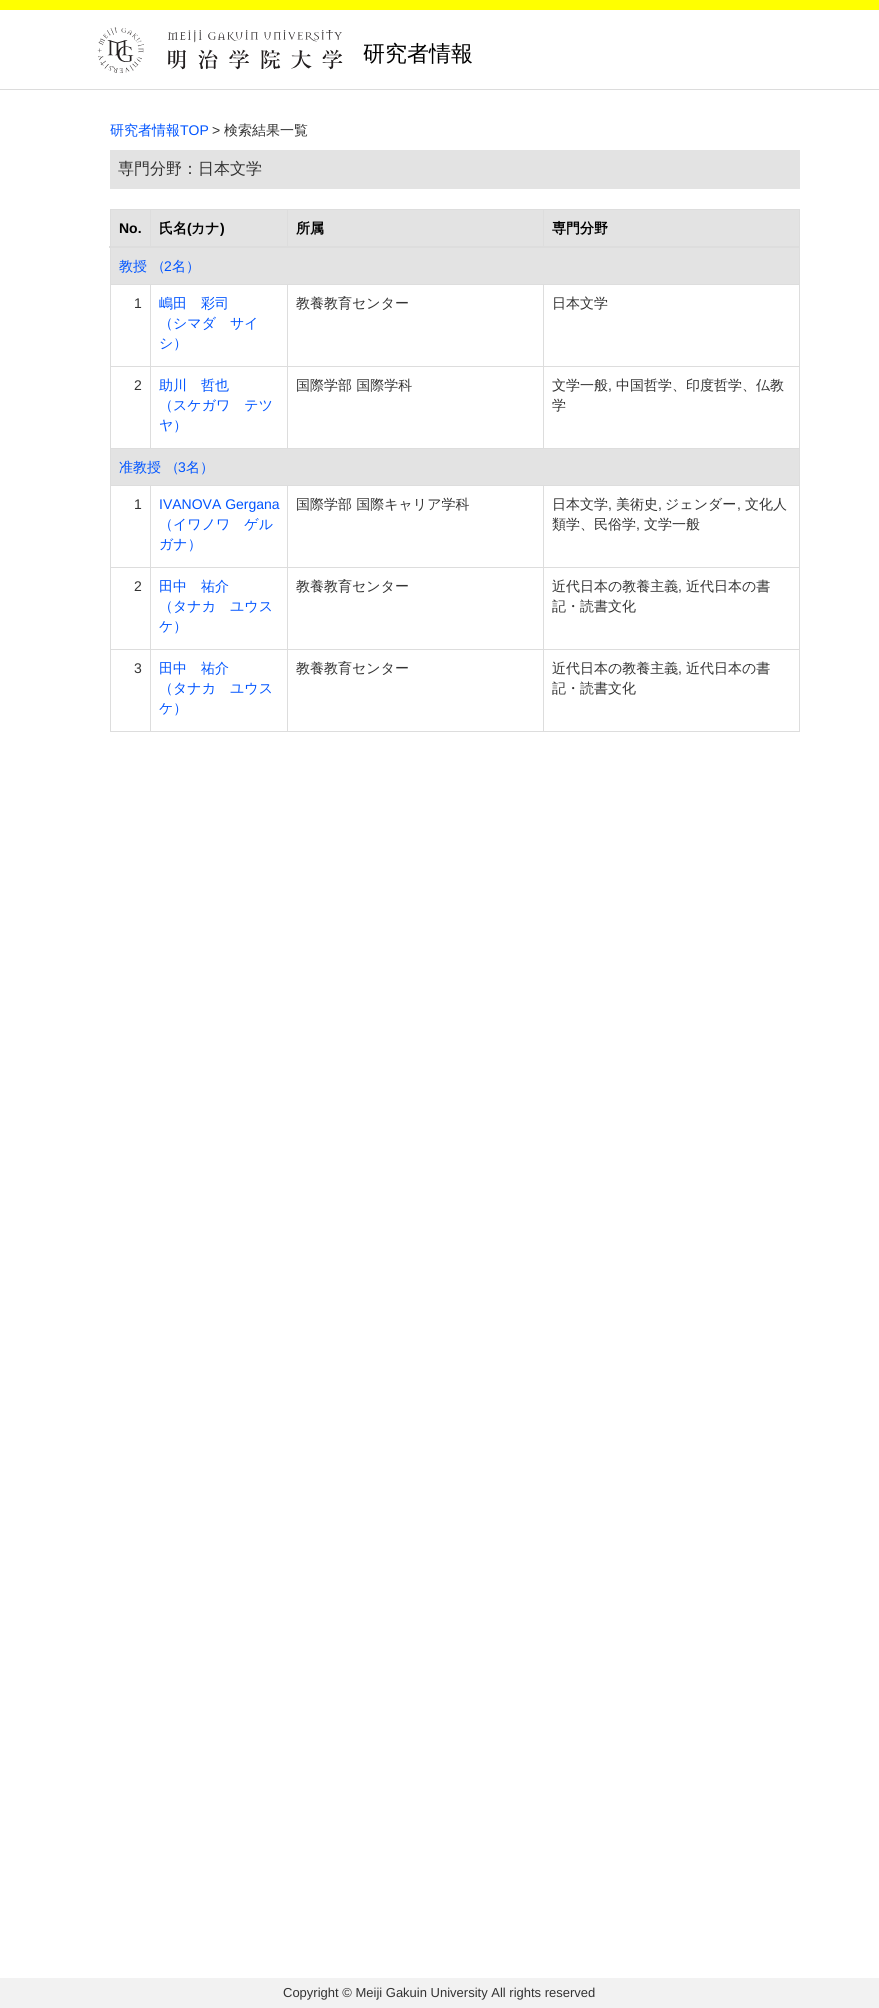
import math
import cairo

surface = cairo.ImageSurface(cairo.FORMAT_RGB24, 879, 2008)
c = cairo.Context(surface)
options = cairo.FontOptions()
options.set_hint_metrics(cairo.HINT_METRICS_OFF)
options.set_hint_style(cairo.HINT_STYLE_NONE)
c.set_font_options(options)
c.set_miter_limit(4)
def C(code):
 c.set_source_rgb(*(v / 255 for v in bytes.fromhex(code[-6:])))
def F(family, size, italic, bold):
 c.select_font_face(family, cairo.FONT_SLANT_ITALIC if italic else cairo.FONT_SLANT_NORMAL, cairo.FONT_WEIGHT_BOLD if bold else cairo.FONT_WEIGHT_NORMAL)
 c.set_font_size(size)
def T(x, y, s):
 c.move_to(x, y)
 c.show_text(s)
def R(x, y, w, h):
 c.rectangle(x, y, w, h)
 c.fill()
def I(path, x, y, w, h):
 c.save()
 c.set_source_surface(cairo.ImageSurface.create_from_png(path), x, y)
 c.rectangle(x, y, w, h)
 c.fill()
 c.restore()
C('ffffff')
c.paint()
C('ffff00')
R(0,0,879,10)
C('dcdcdc')
R(0,89,879,1)
I('1.png',97,27,246,46)
F('WenQuanYi Zen Hei Medium',22,0,0)
C('000000')
T(363,61,'研究者情報')
F('WenQuanYi Zen Hei Medium',14,0,0)
C('0054ff')
T(110,135,'研究者情報')
F('Liberation Sans',14,0,0)
T(180,135,'TOP')
C('333333')
T(212,135,'>')
F('WenQuanYi Zen Hei Medium',14,0,0)
T(224,135,'検索結果一覧')
C('e3e3e3')
R(110,150,690,39)
F('WenQuanYi Zen Hei Medium',16,0,0)
C('333333')
T(118,174,'専門分野：日本文学')
C('dddddd')
R(110,209,690,1)
R(799,209,1,523)
R(110,731,690,1)
R(110,209,1,523)
C('e3e3e3')
R(111,210,688,36)
F('Liberation Sans',14,0,1)
C('000000')
T(119,233,'No.')
C('dddddd')
R(150,209,1,38)
F('WenQuanYi Zen Hei',14,0,1)
C('000000')
T(159,233,'氏名')
F('Liberation Sans',14,0,1)
T(187,233,'(')
F('WenQuanYi Zen Hei',14,0,1)
T(191,233,'カナ')
F('Liberation Sans',14,0,1)
T(220,233,')')
C('dddddd')
R(287,209,1,38)
F('WenQuanYi Zen Hei',14,0,1)
C('000000')
T(296,233,'所属')
C('dddddd')
R(543,209,1,38)
R(109,246,691,2)
C('000000')
T(552,233,'専門分野')
C('e3e3e3')
R(111,248,688,36)
F('WenQuanYi Zen Hei Medium',14,0,0)
C('0054ff')
T(119,271,'教授 （')
F('Liberation Sans',14,0,0)
T(164,271,'2')
F('WenQuanYi Zen Hei Medium',14,0,0)
T(172,271,'名）')
C('dddddd')
R(543,284,257,1)
R(543,366,257,1)
R(110,448,690,1)
R(543,366,1,83)
R(287,366,257,1)
R(543,284,1,83)
R(287,284,257,1)
R(287,366,1,83)
R(150,366,138,1)
R(287,284,1,83)
R(150,284,138,1)
R(150,366,1,83)
R(110,366,41,1)
R(150,284,1,83)
R(110,284,41,1)
F('Liberation Sans',14,0,0)
C('333333')
T(134,308,'1')
F('WenQuanYi Zen Hei Medium',14,0,0)
C('0054ff')
T(159,308,'嶋田　彩司')
T(159,328,'（シマダ　サイ')
T(159,348,'シ）')
C('333333')
T(296,308,'教養教育センター')
T(552,308,'日本文学')
F('Liberation Sans',14,0,0)
T(134,390,'2')
F('WenQuanYi Zen Hei Medium',14,0,0)
C('0054ff')
T(159,390,'助川　哲也')
T(159,410,'（スケガワ　テツ')
T(159,430,'ヤ）')
C('333333')
T(296,390,'国際学部 国際学科')
T(552,390,'文学一般')
F('Liberation Sans',14,0,0)
T(608,390,',')
F('WenQuanYi Zen Hei Medium',14,0,0)
T(616,390,'中国哲学、印度哲学、仏教')
T(552,410,'学')
C('e3e3e3')
R(111,449,688,36)
C('0054ff')
T(119,472,'准教授 （')
F('Liberation Sans',14,0,0)
T(178,472,'3')
F('WenQuanYi Zen Hei Medium',14,0,0)
T(186,472,'名）')
C('dddddd')
R(543,485,257,1)
R(543,567,257,1)
R(543,649,257,1)
R(543,649,1,83)
R(287,649,257,1)
R(543,567,1,83)
R(287,567,257,1)
R(543,485,1,83)
R(287,485,257,1)
R(287,649,1,83)
R(150,649,138,1)
R(287,567,1,83)
R(150,567,138,1)
R(287,485,1,83)
R(150,485,138,1)
R(150,649,1,83)
R(110,649,41,1)
R(150,567,1,83)
R(110,567,41,1)
R(150,485,1,83)
R(110,485,41,1)
F('Liberation Sans',14,0,0)
C('333333')
T(134,509,'1')
C('0054ff')
T(159,509,'IVANOVA Gergana')
F('WenQuanYi Zen Hei Medium',14,0,0)
T(159,529,'（イワノワ　ゲル')
T(159,549,'ガナ）')
C('333333')
T(296,509,'国際学部 国際キャリア学科')
T(552,509,'日本文学')
F('Liberation Sans',14,0,0)
T(608,509,',')
F('WenQuanYi Zen Hei Medium',14,0,0)
T(616,509,'美術史')
F('Liberation Sans',14,0,0)
T(658,509,',')
F('WenQuanYi Zen Hei Medium',14,0,0)
T(665,509,'ジェンダー')
F('Liberation Sans',14,0,0)
T(737,509,',')
F('WenQuanYi Zen Hei Medium',14,0,0)
T(745,509,'文化人')
T(552,529,'類学、民俗学')
F('Liberation Sans',14,0,0)
T(636,529,',')
F('WenQuanYi Zen Hei Medium',14,0,0)
T(644,529,'文学一般')
F('Liberation Sans',14,0,0)
T(134,591,'2')
F('WenQuanYi Zen Hei Medium',14,0,0)
C('0054ff')
T(159,591,'田中　祐介')
T(159,611,'（タナカ　ユウス')
T(159,631,'ケ）')
C('333333')
T(296,591,'教養教育センター')
T(552,591,'近代日本の教養主義')
F('Liberation Sans',14,0,0)
T(678,591,',')
F('WenQuanYi Zen Hei Medium',14,0,0)
T(686,591,'近代日本の書')
T(552,611,'記・読書文化')
F('Liberation Sans',14,0,0)
T(134,673,'3')
F('WenQuanYi Zen Hei Medium',14,0,0)
C('0054ff')
T(159,673,'田中　祐介')
T(159,693,'（タナカ　ユウス')
T(159,713,'ケ）')
C('333333')
T(296,673,'教養教育センター')
T(552,673,'近代日本の教養主義')
F('Liberation Sans',14,0,0)
T(678,673,',')
F('WenQuanYi Zen Hei Medium',14,0,0)
T(686,673,'近代日本の書')
T(552,693,'記・読書文化')
C('f2f2f2')
R(0,1978,879,30)
F('Liberation Sans',13,0,0)
C('333333')
T(283,1997,'Copyright © Meiji Gakuin University All rights reserved')
surface.write_to_png('o.png')
